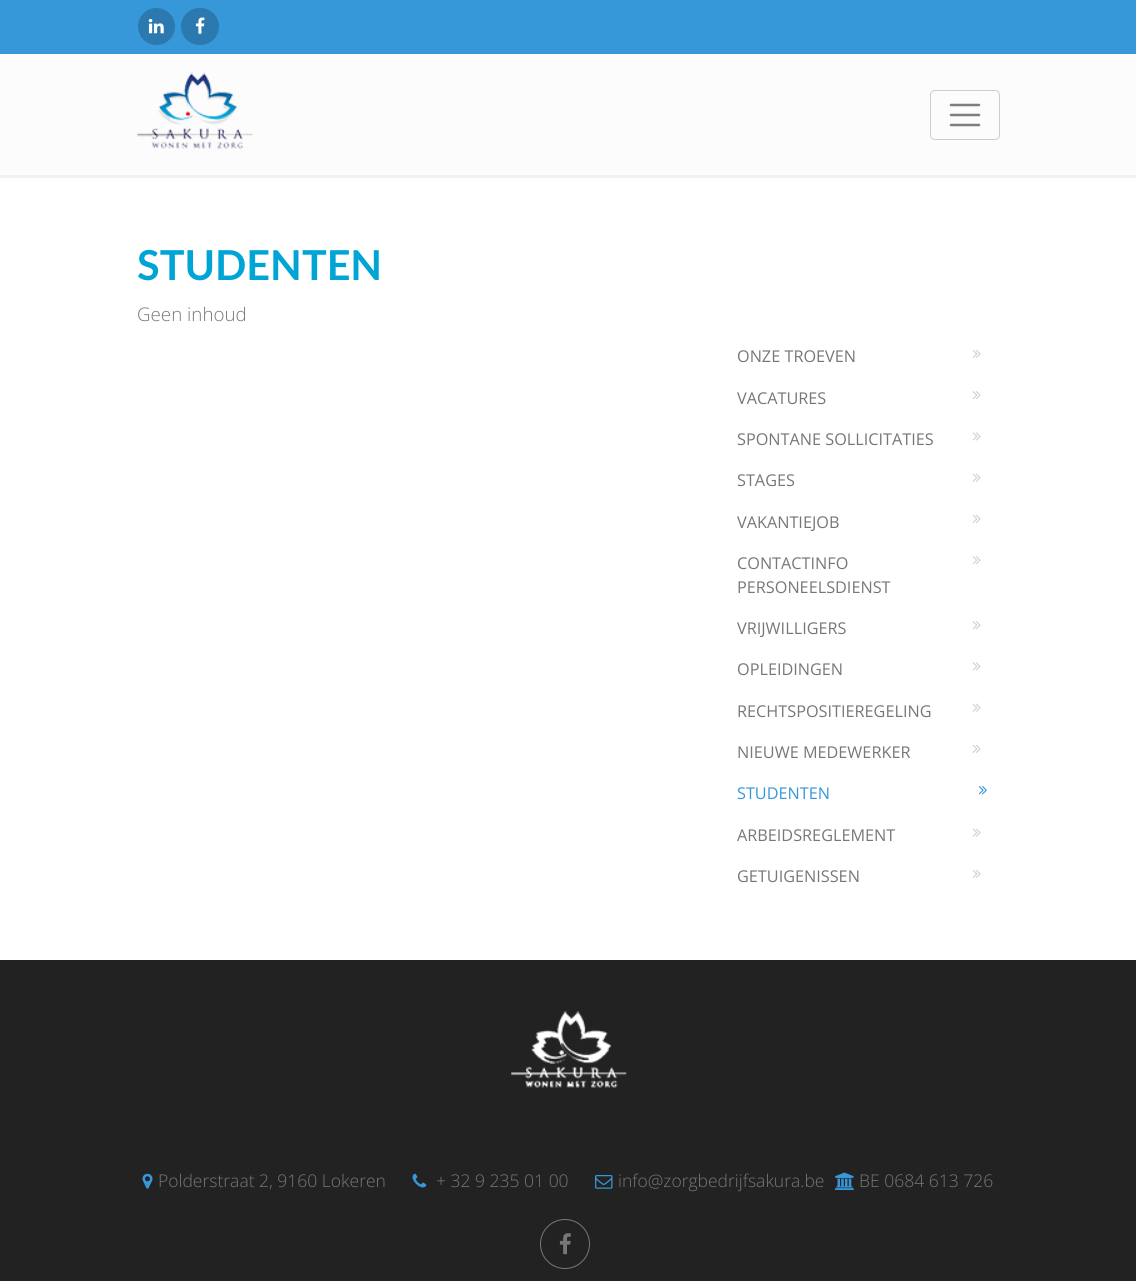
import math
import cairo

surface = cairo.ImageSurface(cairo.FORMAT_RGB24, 1136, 1281)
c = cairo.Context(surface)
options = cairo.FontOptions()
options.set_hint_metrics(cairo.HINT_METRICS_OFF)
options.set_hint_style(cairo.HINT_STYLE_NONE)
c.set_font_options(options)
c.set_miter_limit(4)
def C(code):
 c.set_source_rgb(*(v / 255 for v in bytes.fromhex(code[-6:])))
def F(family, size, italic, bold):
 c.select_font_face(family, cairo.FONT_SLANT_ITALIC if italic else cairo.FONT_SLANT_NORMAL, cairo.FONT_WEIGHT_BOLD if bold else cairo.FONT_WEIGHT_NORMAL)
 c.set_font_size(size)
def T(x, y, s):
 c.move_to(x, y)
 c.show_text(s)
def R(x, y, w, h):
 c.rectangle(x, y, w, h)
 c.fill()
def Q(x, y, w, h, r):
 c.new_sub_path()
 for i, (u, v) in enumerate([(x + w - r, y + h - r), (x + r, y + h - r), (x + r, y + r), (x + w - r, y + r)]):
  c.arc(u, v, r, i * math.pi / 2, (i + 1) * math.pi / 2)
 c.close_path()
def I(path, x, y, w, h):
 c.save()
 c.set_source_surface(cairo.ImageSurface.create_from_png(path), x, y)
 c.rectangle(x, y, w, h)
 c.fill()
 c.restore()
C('ffffff')
c.paint()
C('3697d9')
R(0,0,1136,54)
C('2b79ae')
c.arc(156.5,26.5,18.5,0,2 * math.pi)
c.fill()
I('1.png',148,19,16,15)
Q(181,8,38,37,18.5)
c.fill()
I('2.png',195,17,10,17)
C('fcfcfc')
R(0,55,1136,120)
C('f1f1f1')
R(0,175,1136,3)
I('3.png',137,72,116,77)
Q(930.5,90.5,69,49,4.5)
C('cccccc')
c.set_line_width(1)
c.stroke()
c.new_path()
c.move_to(951,105)
c.line_to(979,105)
c.move_to(951,115)
c.line_to(979,115)
c.move_to(951,125)
c.line_to(979,125)
C('7e7e7e')
c.set_line_width(2.5)
c.set_line_cap(cairo.LINE_CAP_ROUND)
c.stroke()
F('Lato',41.25,0,1)
C('00a5d6')
T(137,280,'STUDENTEN')
F('Open Sans Light',18.75,0,0)
C('777777')
T(137,321,'Geen inhoud')
F('Open Sans',16.25,0,0)
T(737,362,'ONZE TROEVEN')
I('4.png',972,349,9,9)
T(737,404,'VACATURES')
I('5.png',972,391,9,9)
T(737,445,'SPONTANE SOLLICITATIES')
I('6.png',972,432,9,9)
T(737,486,'STAGES')
I('7.png',972,473,9,9)
T(737,528,'VAKANTIEJOB')
I('4.png',972,514,9,9)
T(737,569,'CONTACTINFO')
I('5.png',972,556,9,9)
T(737,593,'PERSONEELSDIENST')
T(737,634,'VRIJWILLIGERS')
I('5.png',972,621,9,9)
T(737,675,'OPLEIDINGEN')
I('6.png',972,662,9,9)
T(737,717,'RECHTSPOSITIEREGELING')
I('7.png',972,703,9,9)
T(737,758,'NIEUWE MEDEWERKER')
I('4.png',972,744,9,9)
C('3697d9')
T(737,799,'STUDENTEN')
I('8.png',978,786,9,9)
C('777777')
T(737,841,'ARBEIDSREGLEMENT')
I('7.png',972,828,9,9)
T(737,882,'GETUIGENISSEN')
I('4.png',972,869,9,9)
C('222222')
R(0,960,1136,321)
I('9.png',511,1011,116,77)
I('10.png',142,1173,11,16)
F('Open Sans Light',17.5,0,0)
C('777777')
T(158,1187,'Polderstraat 2, 9160 Lokeren')
I('11.png',412,1173,15,15)
T(436,1187,'+ 32 9 235 01 00')
I('12.png',595,1175,18,14)
T(618,1187,'info@zorgbedrijfsakura.be')
I('13.png',835,1172,19,18)
T(859,1187,'BE 0684 613 726')
c.new_path()
c.arc(565,1244,24.5,0,2 * math.pi)
c.set_line_width(1)
c.set_line_cap(cairo.LINE_CAP_BUTT)
c.stroke()
I('14.png',559,1233,12,22)
surface.write_to_png('o.png')
